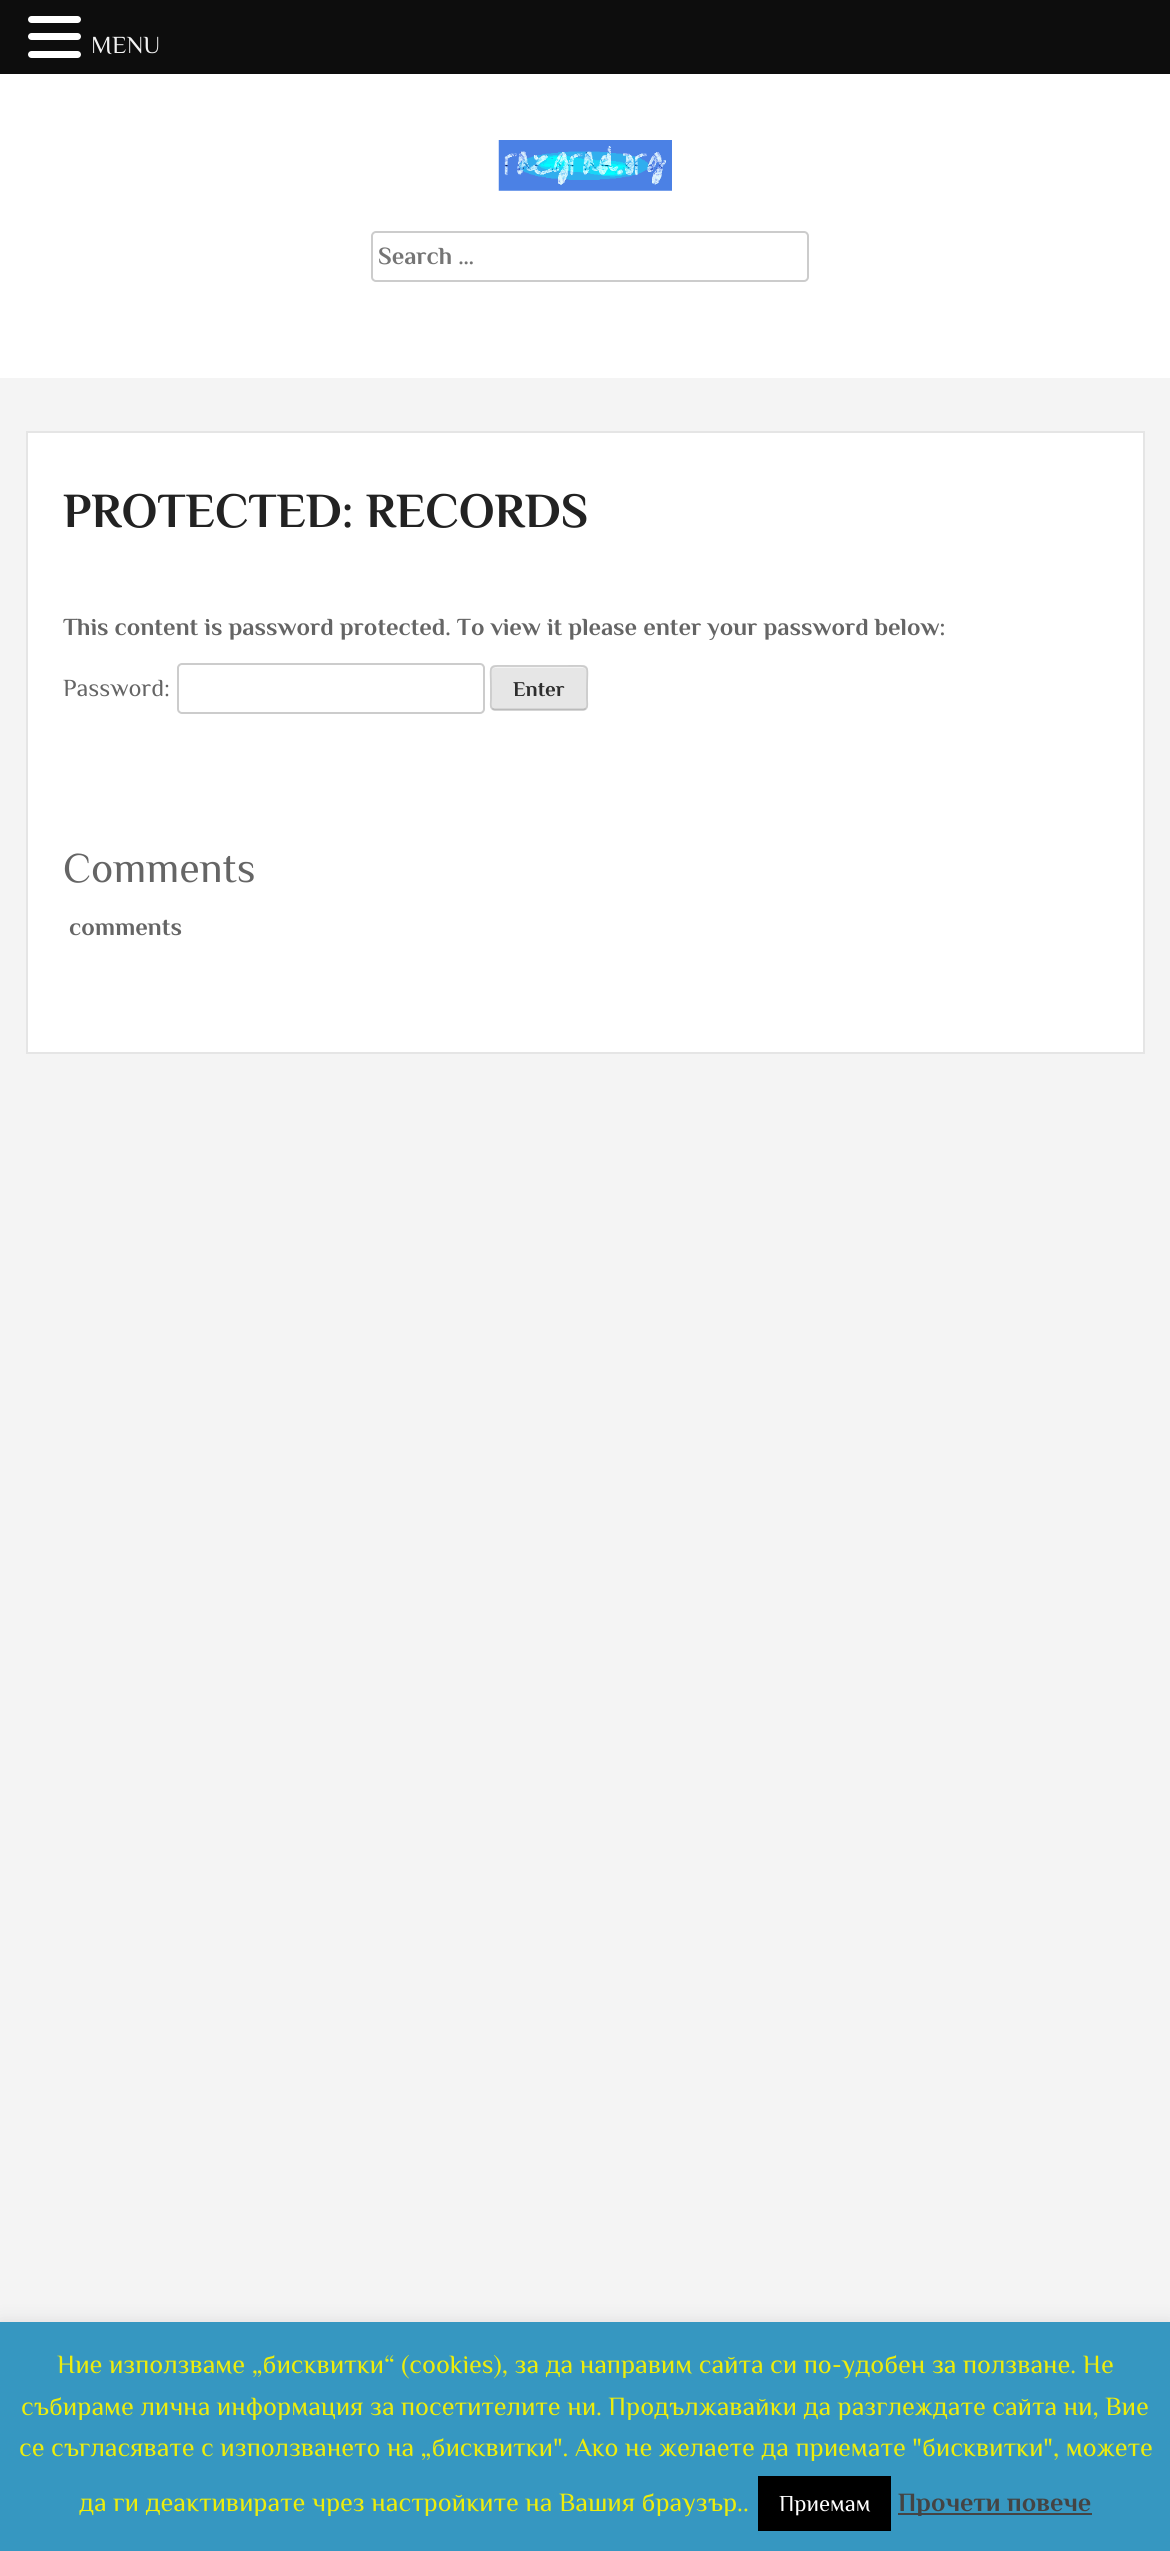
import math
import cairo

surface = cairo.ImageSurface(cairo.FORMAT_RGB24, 1170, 2551)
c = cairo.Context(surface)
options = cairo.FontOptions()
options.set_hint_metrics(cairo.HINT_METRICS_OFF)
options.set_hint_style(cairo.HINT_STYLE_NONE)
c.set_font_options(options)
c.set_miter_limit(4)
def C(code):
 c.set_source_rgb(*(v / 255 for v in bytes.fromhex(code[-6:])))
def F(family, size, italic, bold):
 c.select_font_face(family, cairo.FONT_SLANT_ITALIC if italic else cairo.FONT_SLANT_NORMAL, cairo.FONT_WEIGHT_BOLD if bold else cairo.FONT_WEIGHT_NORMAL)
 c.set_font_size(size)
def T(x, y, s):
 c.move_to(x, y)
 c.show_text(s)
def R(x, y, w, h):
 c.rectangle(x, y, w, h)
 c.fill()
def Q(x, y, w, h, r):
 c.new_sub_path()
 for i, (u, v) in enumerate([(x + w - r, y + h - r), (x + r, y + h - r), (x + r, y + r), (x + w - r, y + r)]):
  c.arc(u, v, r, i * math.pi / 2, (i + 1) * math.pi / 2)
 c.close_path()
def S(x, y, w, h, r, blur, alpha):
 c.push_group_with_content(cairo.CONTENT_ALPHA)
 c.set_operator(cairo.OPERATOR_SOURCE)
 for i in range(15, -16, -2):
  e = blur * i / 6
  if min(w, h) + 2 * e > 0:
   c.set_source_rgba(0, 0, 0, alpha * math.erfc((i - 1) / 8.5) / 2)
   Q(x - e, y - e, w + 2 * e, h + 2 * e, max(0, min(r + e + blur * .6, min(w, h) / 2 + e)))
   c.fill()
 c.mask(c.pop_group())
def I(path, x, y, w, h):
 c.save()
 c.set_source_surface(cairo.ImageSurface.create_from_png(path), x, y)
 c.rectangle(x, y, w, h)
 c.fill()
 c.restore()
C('f4f4f4')
c.paint()
C('0d0d0d')
R(0,0,1170,74)
C('ffffff')
Q(28,16,53,7,3.5)
c.fill()
Q(28,33,53,7,3.5)
c.fill()
Q(28,51,53,7,3.5)
c.fill()
F('Philosopher',24.5,0,0)
C('f2f2f2')
T(91,53,'MENU')
C('ffffff')
c.rectangle(27,432,1117,621)
c.fill_preserve()
C('e5e5e5')
c.stroke()
F('Philosopher',49,0,1)
C('222222')
T(63,527,'PROTECTED: RECORDS')
F('Philosopher',24.5,0,1)
C('656565')
T(63,635,'This content is password protected. To view it please enter your password below:')
F('Philosopher',24.5,0,0)
T(63,696,'Password:')
Q(178,664,306,49,4)
C('cccccc')
c.stroke()
C('e6e6e6')
Q(490,665,98,46,5)
c.fill()
C('f3f3f3')
c.new_path()
c.move_to(495,668)
c.line_to(583,668)
c.curve_to(585,668,586,670,586,672)
c.curve_to(586,663,572,667,568,667)
c.line_to(510,667)
c.curve_to(506,667,492,663,492,672)
c.curve_to(492,670,493,668,495,668)
c.close_path()
c.fill()
c.new_path()
c.move_to(586,708.5)
c.curve_to(585,709,584,709.5,583,709.5)
c.line_to(495,709.5)
c.curve_to(494,709.5,493,709,492,708.5)
C('bbbbbb')
c.set_line_width(1.8)
c.stroke()
c.new_path()
c.move_to(492,708.5)
c.curve_to(490,706,491,702,491,699.5)
c.line_to(491,688)
c.curve_to(491,663.5,486.5,666,510,666)
c.line_to(568,666)
c.curve_to(591.5,666,587,663.5,587,688)
c.line_to(587,699.5)
c.curve_to(587,702,588,706,586,708.5)
C('cccccc')
c.stroke()
F('Philosopher',21,0,1)
C('2e2e2e')
T(513,696,'Enter')
F('Philosopher',42,0,0)
C('656565')
T(63,882,'Comments')
F('Philosopher',24.5,0,1)
T(69,935,'comments')
C('acabab')
S(0,2321,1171,229,0,9,.3)
C('3697c1')
R(0,2322,1170,229)
F('Philosopher',26.25,0,0)
C('eded0b')
T(57,2373,'Ние използваме „бисквитки“ (cookies), за да направим сайта си по-удобен за ползване. Не')
T(21,2415,'събираме лична информация за посетителите ни. Продължавайки да разглеждате сайта ни, Вие')
T(19,2456,'се съгласявате с използването на „бисквитки". Ако не желаете да приемате "бисквитки", можете')
T(79,2511,'да ги деактивирате чрез настройките на Вашия браузър..')
C('000000')
R(758,2476,133,55)
F('Philosopher',22.75,0,0)
C('ffffff')
T(779,2511,'Приемам')
C('444444')
R(898,2513,194,2)
F('Philosopher',26.25,0,1)
T(898,2511,'Прочети повече')
C('ffffff')
R(0,74,1170,304)
I('1.png',498,140,174,51)
Q(372,232,436,49,4)
C('cccccc')
c.set_line_width(2)
c.stroke()
F('Philosopher',24.5,0,1)
C('757575')
T(378,264,'Search …')
surface.write_to_png('o.png')
